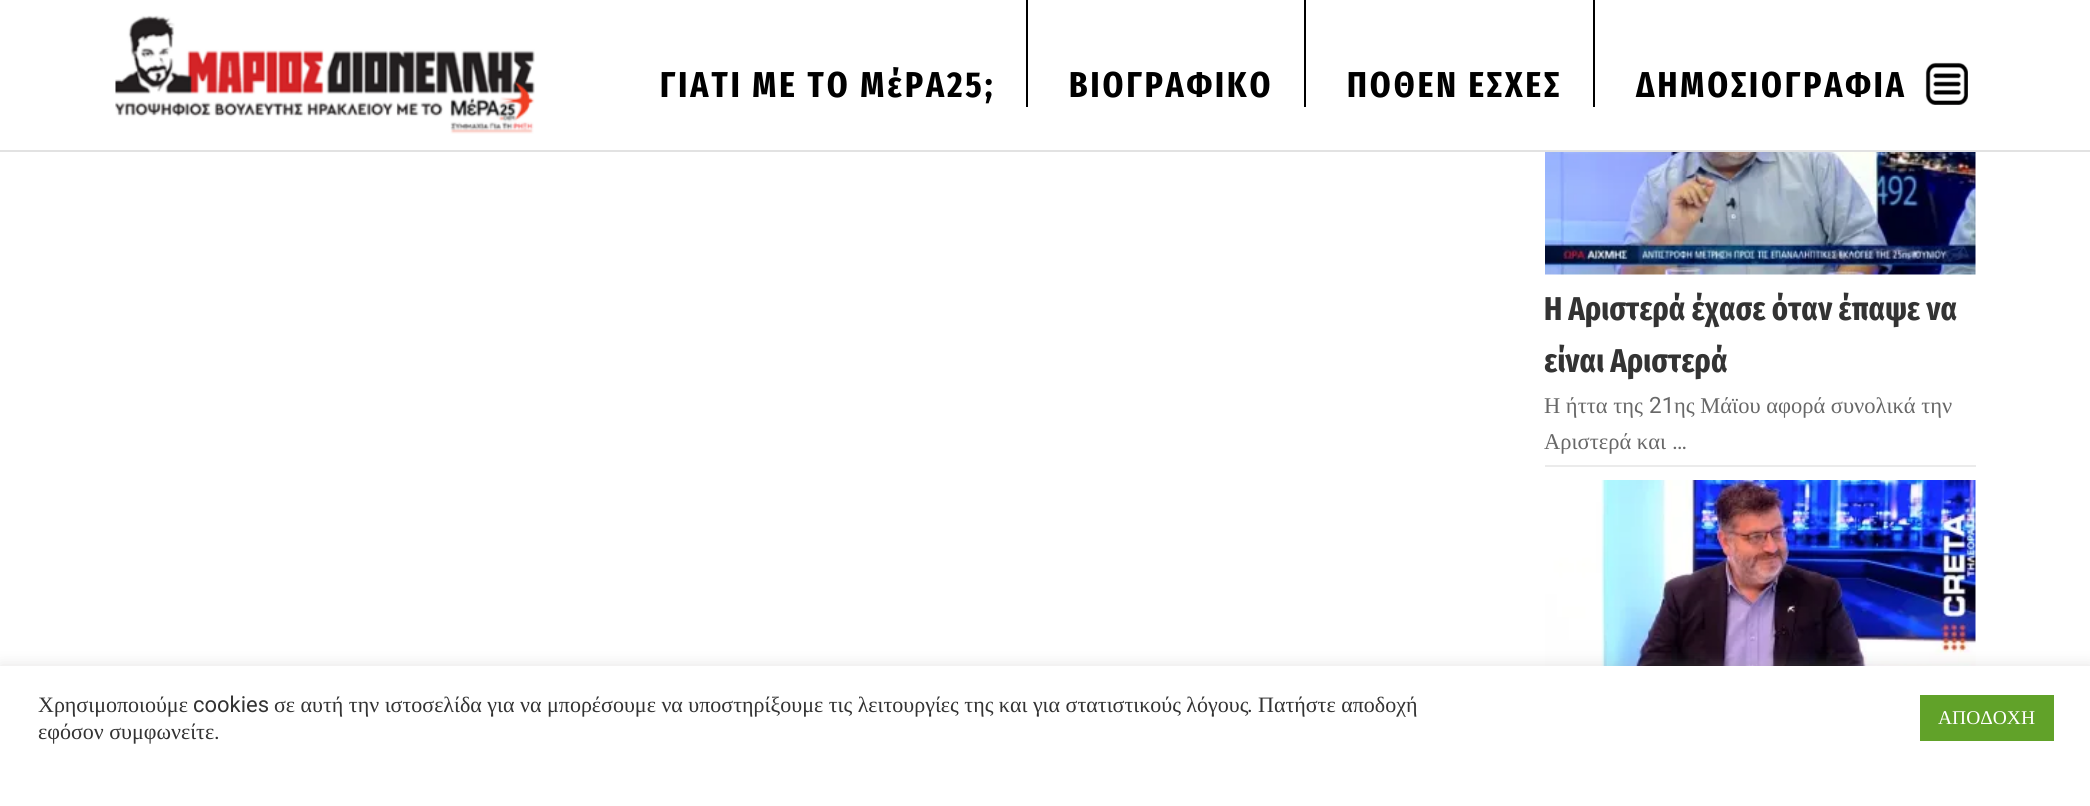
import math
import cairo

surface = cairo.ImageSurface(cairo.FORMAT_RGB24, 2090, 806)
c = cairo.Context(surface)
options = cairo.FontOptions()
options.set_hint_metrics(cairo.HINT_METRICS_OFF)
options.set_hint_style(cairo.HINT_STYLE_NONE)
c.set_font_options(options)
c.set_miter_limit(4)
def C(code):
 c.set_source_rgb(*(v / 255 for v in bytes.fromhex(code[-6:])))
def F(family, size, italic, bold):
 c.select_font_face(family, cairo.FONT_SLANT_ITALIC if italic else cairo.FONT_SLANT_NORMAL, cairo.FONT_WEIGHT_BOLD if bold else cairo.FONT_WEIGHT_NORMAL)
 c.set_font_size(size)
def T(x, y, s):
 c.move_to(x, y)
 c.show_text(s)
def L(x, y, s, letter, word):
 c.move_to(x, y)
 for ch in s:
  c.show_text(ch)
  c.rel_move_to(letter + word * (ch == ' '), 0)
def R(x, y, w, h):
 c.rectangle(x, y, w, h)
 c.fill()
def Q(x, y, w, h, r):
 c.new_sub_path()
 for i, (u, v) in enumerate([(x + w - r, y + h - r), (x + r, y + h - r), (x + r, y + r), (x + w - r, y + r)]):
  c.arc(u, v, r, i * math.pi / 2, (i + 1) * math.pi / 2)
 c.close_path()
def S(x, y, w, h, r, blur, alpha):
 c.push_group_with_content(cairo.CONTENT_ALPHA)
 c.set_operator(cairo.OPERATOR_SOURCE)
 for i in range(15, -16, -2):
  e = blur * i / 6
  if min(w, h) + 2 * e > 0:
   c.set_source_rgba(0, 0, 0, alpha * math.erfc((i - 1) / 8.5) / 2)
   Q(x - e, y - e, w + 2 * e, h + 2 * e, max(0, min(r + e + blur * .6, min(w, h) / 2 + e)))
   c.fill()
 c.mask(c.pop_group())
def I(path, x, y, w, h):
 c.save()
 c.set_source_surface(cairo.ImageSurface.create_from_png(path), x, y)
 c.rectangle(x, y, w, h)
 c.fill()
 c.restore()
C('ffffff')
c.paint()
C('e2e2e2')
R(0,150,2090,2)
I('1.png',115,15,420,119)
F('Fira Sans Extra Condensed',36,0,1)
C('000000')
L(660,97,'ΓΙΑΤΙ ΜΕ ΤΟ ΜέΡΑ25;',3,0)
R(1026,0,2,107)
L(1069,97,'ΒΙΟΓΡΑΦΙΚΟ',3,0)
R(1304,0,2,107)
L(1347,97,'ΠΟΘΕΝ ΕΣΧΕΣ',3,0)
R(1593,0,2,107)
L(1636,97,'ΔΗΜΟΣΙΟΓΡΑΦΙΑ',3,0)
I('2.png',1925,62,43,43)
C('ebebeb')
R(1545,465,431,2)
I('3.png',1545,152,431,123)
F('Fira Sans Extra Condensed',33,0,1)
C('333333')
T(1544,320,'Η Αριστερά έχασε όταν έπαψε να')
T(1544,372,'είναι Αριστερά')
F('Liberation Serif',22.5,0,0)
C('686868')
T(1544,413,'Η ήττα της')
F('Roboto',22.5,0,0)
T(1649,413,'21')
F('Liberation Serif',22.5,0,0)
T(1674,413,'ης Μάϊου αφορά συνολικά την')
T(1544,449,'Αριστερά και')
F('Roboto',22.5,0,0)
T(1672,449,'…')
I('4.png',1545,480,431,186)
C('acabab')
S(0,665,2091,141,0,7.5,.3)
C('ffffff')
R(0,666,2090,140)
F('Liberation Serif',22,0,0)
C('333333')
T(38,712,'Χρησιμοποιούμε')
F('Roboto',22,0,0)
T(193,712,'cookies')
F('Liberation Serif',22,0,0)
T(274,712,'σε αυτή την ιστοσελίδα για να μπορέσουμε να υποστηρίξουμε τις λειτουργίες της και για στατιστικούς λόγους')
F('Roboto',22,0,0)
T(1247,712,'.')
F('Liberation Serif',22,0,0)
T(1258,712,'Πατήστε αποδοχή')
T(38,739,'εφόσον συμφωνείτε')
F('Roboto',22,0,0)
T(214,739,'.')
C('61a229')
R(1920,695,134,46)
F('Liberation Serif',19.5,0,0)
C('ffffff')
T(1938,724,'ΑΠΟΔΟΧΗ')
surface.write_to_png('o.png')
